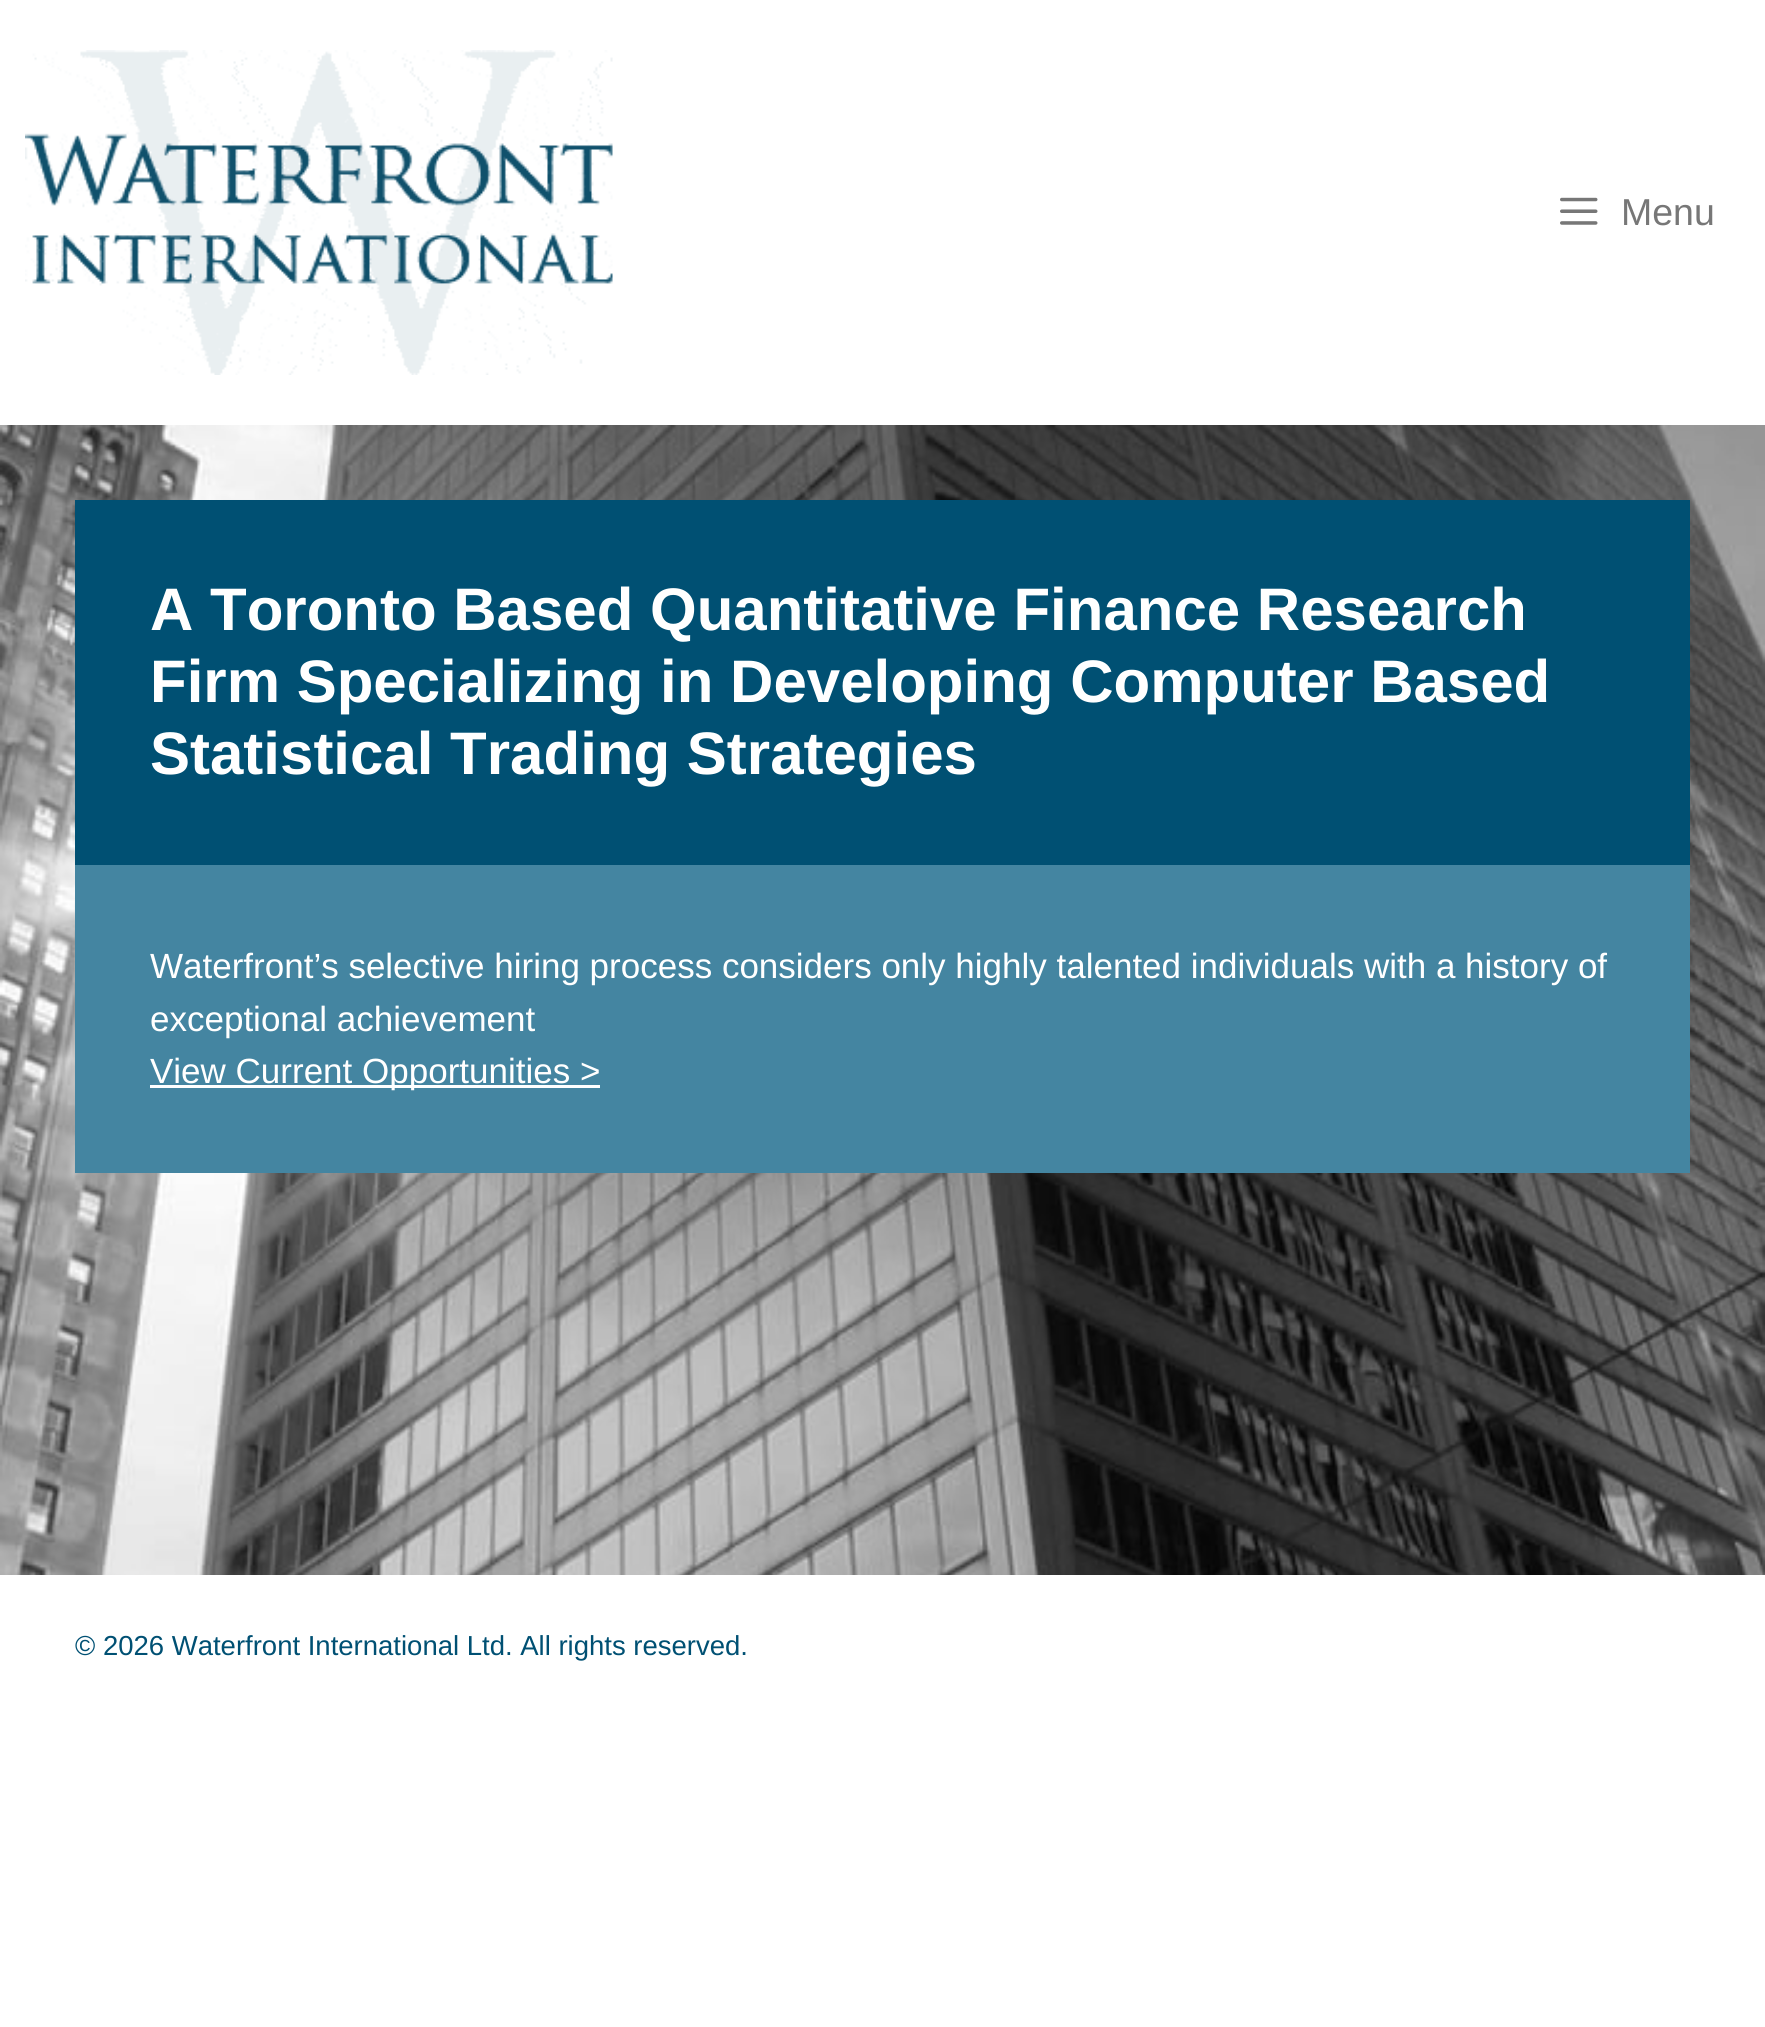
import math
import cairo

surface = cairo.ImageSurface(cairo.FORMAT_RGB24, 1765, 2027)
c = cairo.Context(surface)
options = cairo.FontOptions()
options.set_hint_metrics(cairo.HINT_METRICS_OFF)
options.set_hint_style(cairo.HINT_STYLE_NONE)
c.set_font_options(options)
c.set_miter_limit(4)
def C(code):
 c.set_source_rgb(*(v / 255 for v in bytes.fromhex(code[-6:])))
def F(family, size, italic, bold):
 c.select_font_face(family, cairo.FONT_SLANT_ITALIC if italic else cairo.FONT_SLANT_NORMAL, cairo.FONT_WEIGHT_BOLD if bold else cairo.FONT_WEIGHT_NORMAL)
 c.set_font_size(size)
def T(x, y, s):
 c.move_to(x, y)
 c.show_text(s)
def R(x, y, w, h):
 c.rectangle(x, y, w, h)
 c.fill()
def I(path, x, y, w, h):
 c.save()
 c.set_source_surface(cairo.ImageSurface.create_from_png(path), x, y)
 c.rectangle(x, y, w, h)
 c.fill()
 c.restore()
C('ffffff')
c.paint()
I('1.png',0,425,1765,1150)
I('2.png',25,50,588,325)
I('3.png',1560,197,38,28)
F('Liberation Sans',37.5,0,0)
C('777777')
T(1621,225,'Menu')
C('005073')
R(75,500,1615,365)
F('Liberation Sans',60,0,1)
C('ffffff')
T(150,630,'A Toronto Based Quantitative Finance Research')
T(150,702,'Firm Specializing in Developing Computer Based')
T(150,774,'Statistical Trading Strategies')
C('4485a1')
R(75,865,1615,308)
F('Liberation Sans',35,0,0)
C('ffffff')
T(150,978,'Waterfront’s selective hiring process considers only highly talented individuals with a history of')
T(150,1031,'exceptional achievement')
R(150,1085,450,3)
T(150,1083,'View Current Opportunities >')
F('Liberation Sans',27.5,0,0)
C('005073')
T(75,1655,'© 2026 Waterfront International Ltd. All rights reserved.')
surface.write_to_png('o.png')
